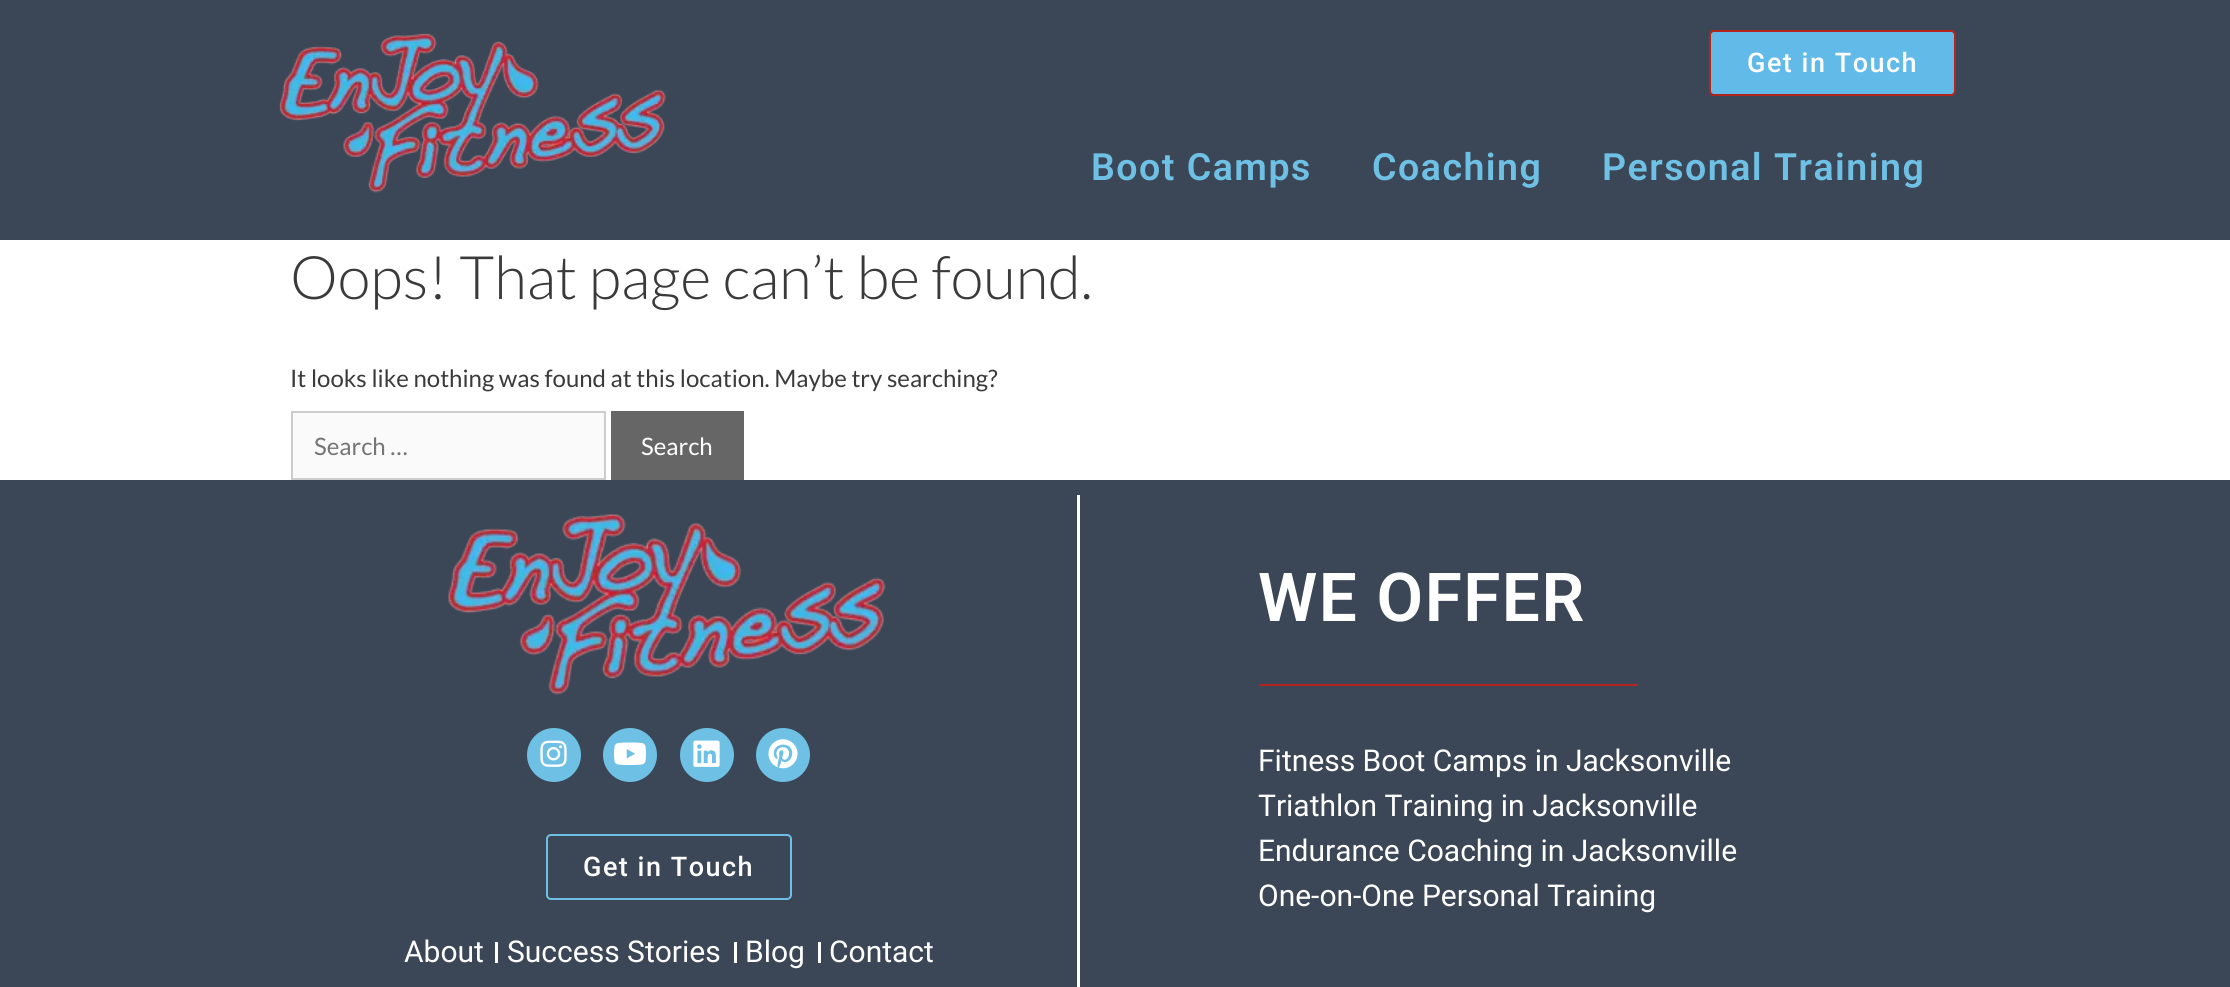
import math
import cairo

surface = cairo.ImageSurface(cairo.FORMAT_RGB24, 2230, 987)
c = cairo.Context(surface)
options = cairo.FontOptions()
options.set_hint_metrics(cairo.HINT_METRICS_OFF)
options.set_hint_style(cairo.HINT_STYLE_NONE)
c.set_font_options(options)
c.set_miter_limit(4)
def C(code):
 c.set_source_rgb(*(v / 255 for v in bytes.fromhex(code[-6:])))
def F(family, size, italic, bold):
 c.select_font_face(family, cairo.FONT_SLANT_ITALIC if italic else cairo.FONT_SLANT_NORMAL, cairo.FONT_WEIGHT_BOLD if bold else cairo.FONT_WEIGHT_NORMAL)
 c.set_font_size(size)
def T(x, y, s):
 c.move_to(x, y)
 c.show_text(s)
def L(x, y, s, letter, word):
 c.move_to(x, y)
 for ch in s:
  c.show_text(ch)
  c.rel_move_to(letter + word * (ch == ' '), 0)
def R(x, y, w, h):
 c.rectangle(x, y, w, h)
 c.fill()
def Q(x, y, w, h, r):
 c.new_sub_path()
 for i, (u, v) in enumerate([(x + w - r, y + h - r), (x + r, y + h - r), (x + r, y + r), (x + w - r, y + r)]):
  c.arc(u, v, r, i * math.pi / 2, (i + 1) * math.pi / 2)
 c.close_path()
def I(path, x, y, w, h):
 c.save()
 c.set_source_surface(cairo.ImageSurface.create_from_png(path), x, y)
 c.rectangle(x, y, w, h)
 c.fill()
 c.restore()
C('ffffff')
c.paint()
C('3b4656')
R(0,0,2230,240)
I('1.png',279,33,387,160)
C('62bae8')
Q(1710,31,245,64,4)
c.fill_preserve()
C('b4241d')
c.stroke()
F('Roboto Medium',27,0,0)
C('ffffff')
L(1747,72,'Get in Touch',1.5,0)
F('Roboto SemiBold',37.5,0,0)
C('6ec1e4')
L(1091,180,'Boot Camps',1.5,0)
L(1372,180,'Coaching',1.5,0)
L(1602,180,'Personal Training',1.5,0)
F('Lato Light',60,0,0)
C('3a3a3a')
T(290,299,'Oops! That page can’t be found.')
F('Lato',24,0,0)
T(290,387,'It looks like nothing was found at this location. Maybe try searching?')
C('fafafa')
c.rectangle(292,412,313,67)
c.fill_preserve()
C('cccccc')
c.stroke()
C('757575')
T(314,455,'Search …')
C('666666')
R(611,411,133,69)
C('ffffff')
T(641,455,'Search')
C('3b4656')
R(0,480,2230,507)
C('ffffff')
R(1077,495,3,492)
I('2.png',448,514,438,181)
C('6ec1e4')
c.arc(554,755,27,0,2 * math.pi)
c.fill()
I('3.png',540,740,27,27)
c.arc(630,755,27,0,2 * math.pi)
c.fill()
I('4.png',614,742,32,23)
c.arc(707,755,27,0,2 * math.pi)
c.fill()
I('5.png',693,740,27,27)
c.arc(783,755,27,0,2 * math.pi)
c.fill()
I('6.png',768,739,30,30)
Q(547,835,244,64,4)
c.stroke()
F('Roboto Medium',27,0,0)
C('ffffff')
L(583,876,'Get in Touch',1.5,0)
F('Roboto',30,0,0)
T(404,962,'About')
R(495,942,3,21)
T(507,962,'Success Stories')
R(734,942,3,21)
T(745,962,'Blog')
R(818,942,3,21)
T(829,962,'Contact')
F('Roboto SemiBold',67.5,0,0)
L(1258,621,'WE OFFER',1.5,0)
C('b4241d')
R(1259,684,379,2)
F('Roboto',30,0,0)
C('ffffff')
T(1258,771,'Fitness Boot Camps in Jacksonville')
T(1258,816,'Triathlon Training in Jacksonville')
T(1258,861,'Endurance Coaching in Jacksonville')
T(1258,906,'One-on-One Personal Training')
surface.write_to_png('o.png')
